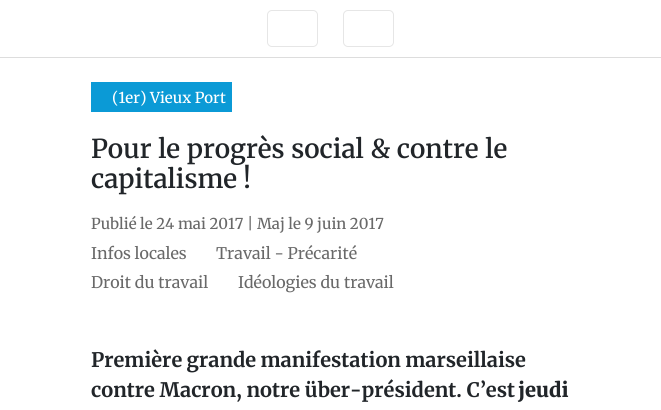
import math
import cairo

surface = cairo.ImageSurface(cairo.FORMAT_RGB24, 661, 410)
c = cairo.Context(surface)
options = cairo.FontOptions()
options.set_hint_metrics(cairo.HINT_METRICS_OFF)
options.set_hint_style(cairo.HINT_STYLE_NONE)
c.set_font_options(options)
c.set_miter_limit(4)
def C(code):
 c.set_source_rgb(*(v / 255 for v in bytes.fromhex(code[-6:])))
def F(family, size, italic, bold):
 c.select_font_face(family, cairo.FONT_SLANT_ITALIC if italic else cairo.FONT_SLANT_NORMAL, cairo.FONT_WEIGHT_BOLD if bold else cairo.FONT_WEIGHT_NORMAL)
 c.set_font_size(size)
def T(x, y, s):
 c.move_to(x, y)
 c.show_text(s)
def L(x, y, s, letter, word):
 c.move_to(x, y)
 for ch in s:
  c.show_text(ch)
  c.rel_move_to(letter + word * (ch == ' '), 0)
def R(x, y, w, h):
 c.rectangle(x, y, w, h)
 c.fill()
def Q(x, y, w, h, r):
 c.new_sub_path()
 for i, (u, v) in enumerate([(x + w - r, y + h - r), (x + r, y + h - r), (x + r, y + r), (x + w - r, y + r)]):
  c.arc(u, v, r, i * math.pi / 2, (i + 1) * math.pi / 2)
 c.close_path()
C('ffffff')
c.paint()
C('dddddd')
R(0,57,661,1)
Q(267.5,10.5,50,36,4.5)
C('e6e6e6')
c.set_line_width(1)
c.stroke()
Q(343.5,10.5,50,36,4.5)
c.stroke()
C('0b9ad6')
R(91,82,141,30)
F('Merriweather Medium',15,0,0)
C('ffffff')
T(112,103,'(1er) Vieux Port')
F('Merriweather SemiBold',26,0,0)
C('212529')
L(91,158,'Pour le progrès social & contre le',0,.5)
T(91,188,'capitalisme !')
F('Merriweather Medium',15,0,0)
C('696969')
T(91,229,'Publié le 24 mai 2017')
T(247,229,'| Maj le 9 juin 2017')
F('Merriweather',16,0,0)
T(91,259,'Infos locales')
T(216,259,'Travail - Précarité')
T(91,288,'Droit du travail')
T(238,288,'Idéologies du travail')
F('Merriweather',20,0,1)
C('212529')
L(91,367,'Première grande manifestation marseillaise',0,-.5)
T(91,397,'contre Macron, notre über-président. C’est')
F('Merriweather Black',20,0,0)
T(518,397,'jeudi')
surface.write_to_png('o.png')
